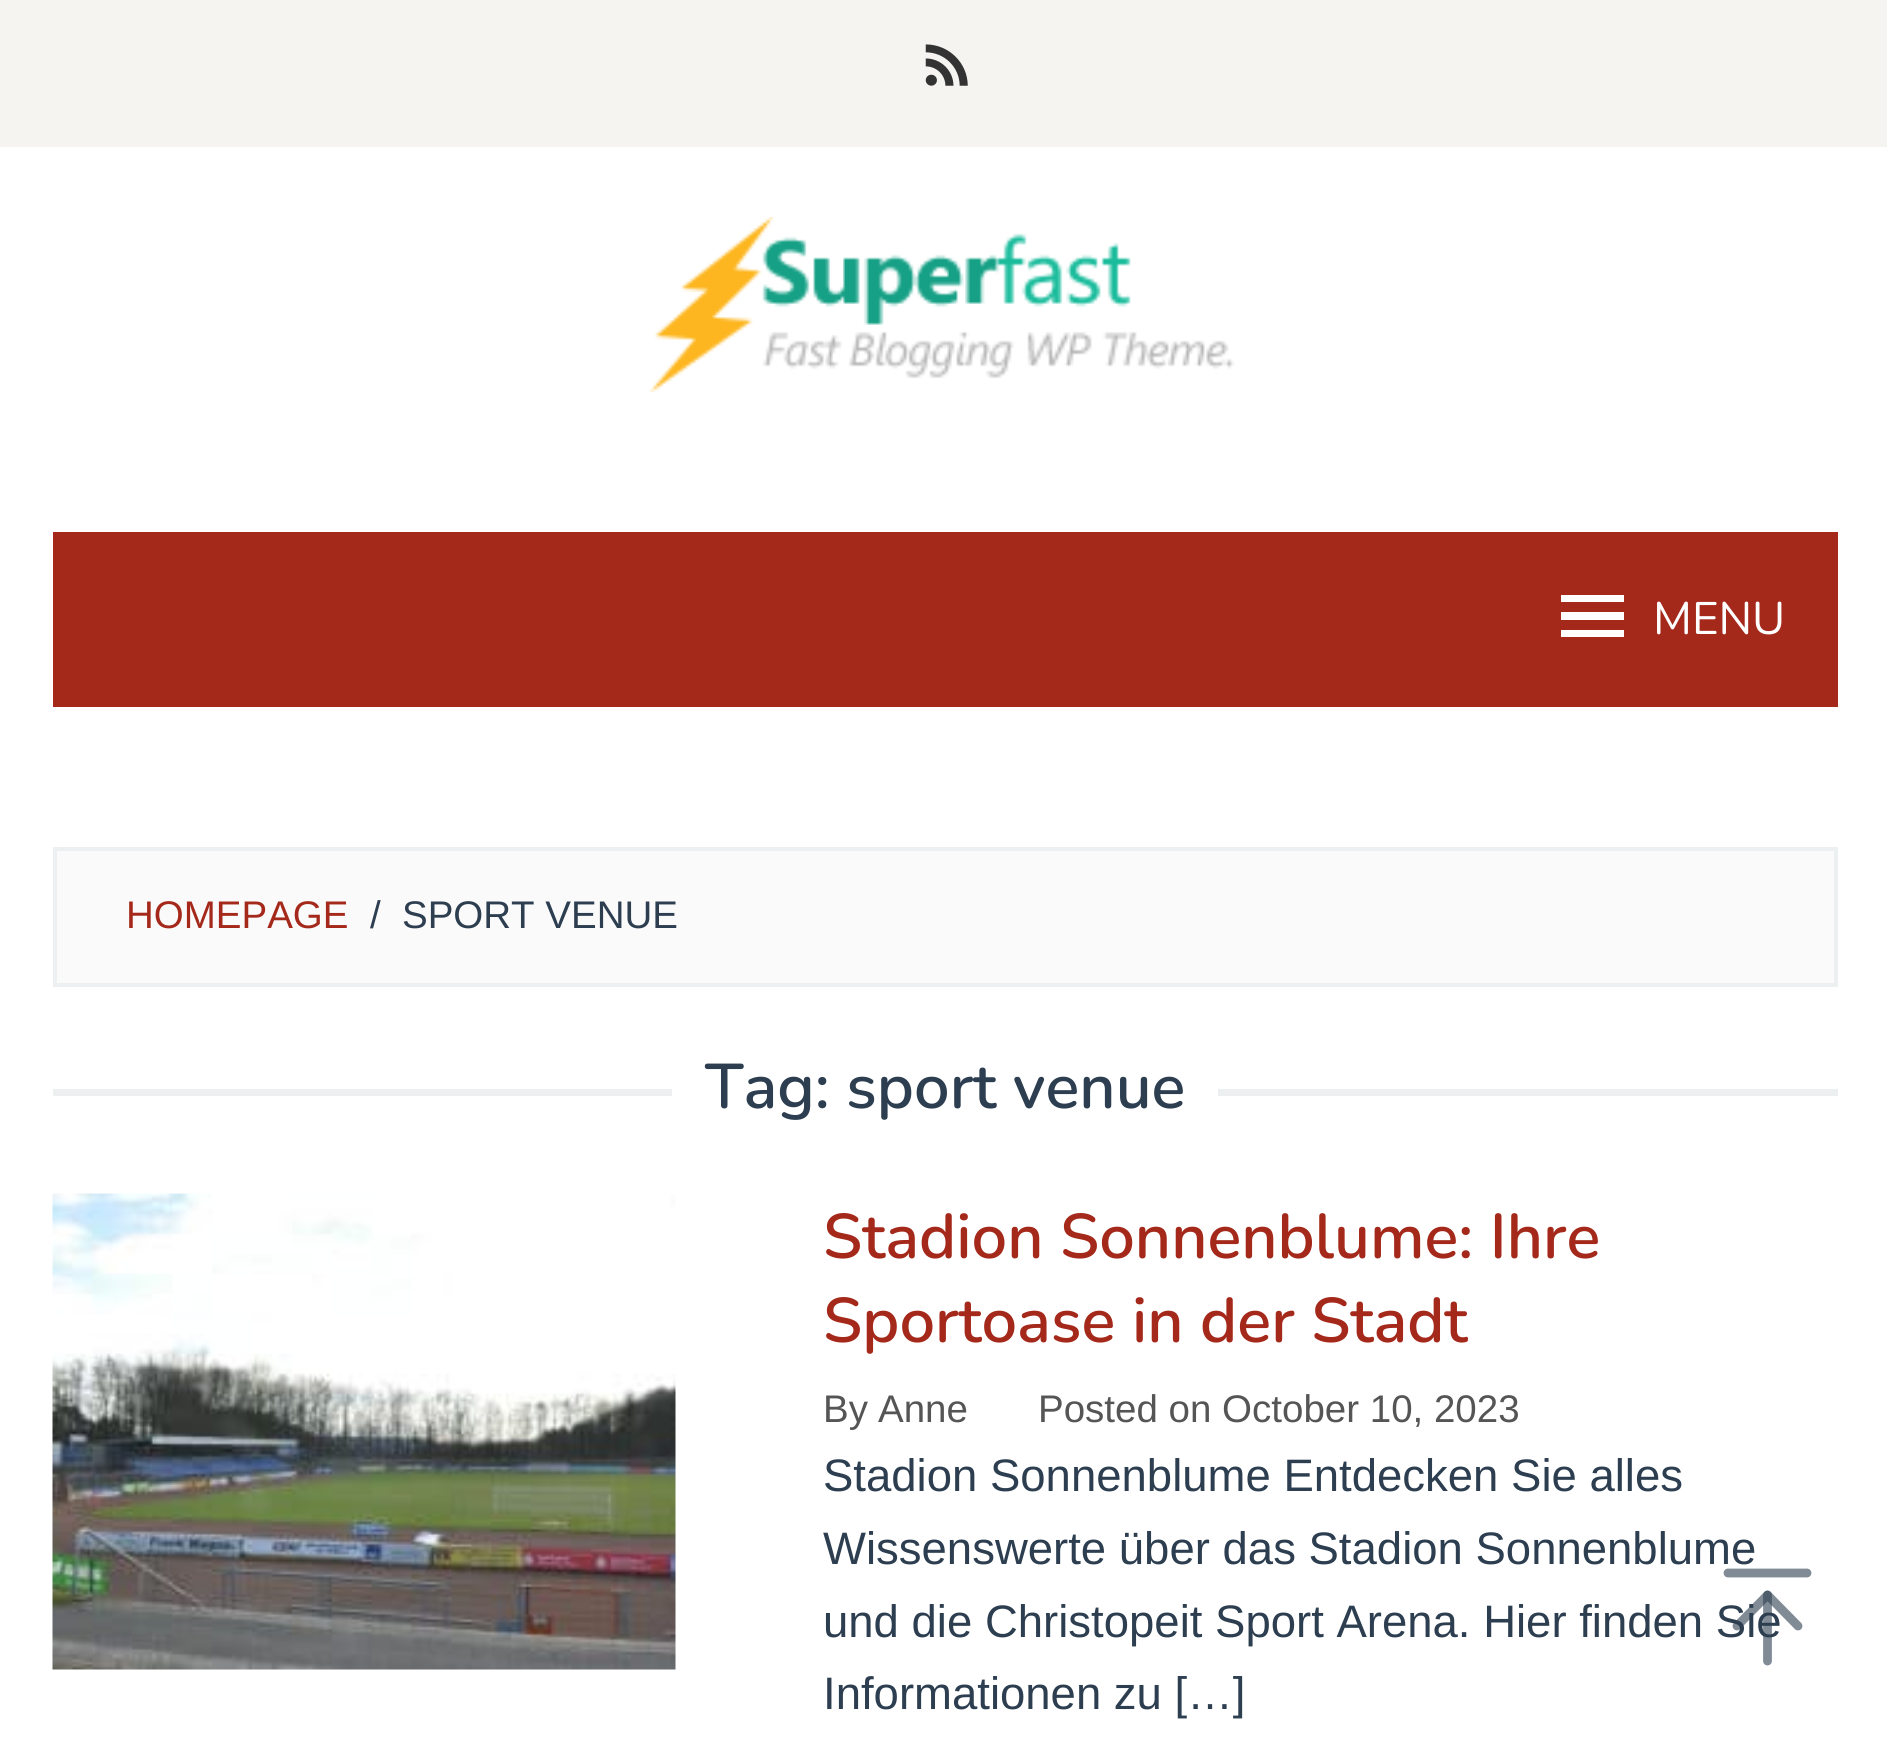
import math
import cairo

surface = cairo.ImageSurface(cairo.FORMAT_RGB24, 1887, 1753)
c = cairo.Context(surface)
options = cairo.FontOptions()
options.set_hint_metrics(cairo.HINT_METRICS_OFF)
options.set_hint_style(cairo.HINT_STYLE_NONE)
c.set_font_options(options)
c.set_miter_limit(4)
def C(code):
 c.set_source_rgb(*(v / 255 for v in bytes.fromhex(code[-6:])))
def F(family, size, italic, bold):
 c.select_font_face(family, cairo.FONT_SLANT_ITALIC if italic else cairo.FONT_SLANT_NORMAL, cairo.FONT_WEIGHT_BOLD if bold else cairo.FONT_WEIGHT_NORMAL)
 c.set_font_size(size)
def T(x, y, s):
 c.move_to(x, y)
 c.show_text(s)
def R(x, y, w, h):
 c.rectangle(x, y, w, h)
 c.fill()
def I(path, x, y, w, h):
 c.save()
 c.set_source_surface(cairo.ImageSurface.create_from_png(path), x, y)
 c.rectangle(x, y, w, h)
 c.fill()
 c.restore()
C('ffffff')
c.paint()
C('f6f4f1')
R(0,0,1887,147)
I('1.png',925,44,43,42)
I('2.png',649,217,586,175)
C('a5291b')
R(53,532,1785,175)
C('ffffff')
c.new_path()
c.move_to(1561,637)
c.line_to(1624,637)
c.line_to(1624,630)
c.line_to(1561,630)
c.close_path()
c.move_to(1561,620)
c.line_to(1624,620)
c.line_to(1624,612)
c.line_to(1561,612)
c.close_path()
c.move_to(1561,595)
c.line_to(1561,602)
c.line_to(1624,602)
c.line_to(1624,595)
c.close_path()
c.fill()
F('Nunito',45.5,0,0)
T(1653,634,'MENU')
C('fafafa')
c.rectangle(55,849,1781,136)
c.fill_preserve()
C('ecf0f1')
c.set_line_width(4)
c.stroke()
F('Liberation Sans',38.5,0,0)
C('a5291b')
T(126,928,'HOMEPAGE')
C('2c3e50')
T(370,928,'/')
T(402,928,'SPORT VENUE')
C('ecf0f1')
R(53,1089,619,7)
F('Nunito SemiBold',63,0,0)
C('2c3e50')
T(705,1108,'Tag: sport venue')
C('ecf0f1')
R(1218,1089,620,7)
I('3.png',52,1193,624,477)
C('a5291b')
T(823,1258,'Stadion Sonnenblume: Ihre')
T(823,1342,'Sportoase in der Stadt')
F('Liberation Sans',38.5,0,0)
C('555555')
T(823,1422,'By')
T(878,1422,'Anne')
T(1038,1422,'Posted on October 10, 2023')
F('Liberation Sans',45.5,0,0)
C('2c3e50')
T(823,1491,'Stadion Sonnenblume Entdecken Sie alles')
T(823,1564,'Wissenswerte über das Stadion Sonnenblume')
T(823,1637,'und die Christopeit Sport Arena. Hier finden Sie')
T(823,1709,'Informationen zu […]')
c.new_path()
c.move_to(1728,1573)
c.line_to(1807,1573)
C('808b96')
c.set_line_width(8.8)
c.set_line_cap(cairo.LINE_CAP_ROUND)
c.set_line_join(cairo.LINE_JOIN_ROUND)
c.stroke()
c.new_path()
c.move_to(1767.5,1661)
c.line_to(1767.5,1595)
c.set_source_rgba(0.173,0.243,0.314,0.6)
c.stroke()
c.new_path()
c.move_to(1737,1626)
c.line_to(1767.5,1595)
c.line_to(1798,1626)
c.stroke()
surface.write_to_png('o.png')
